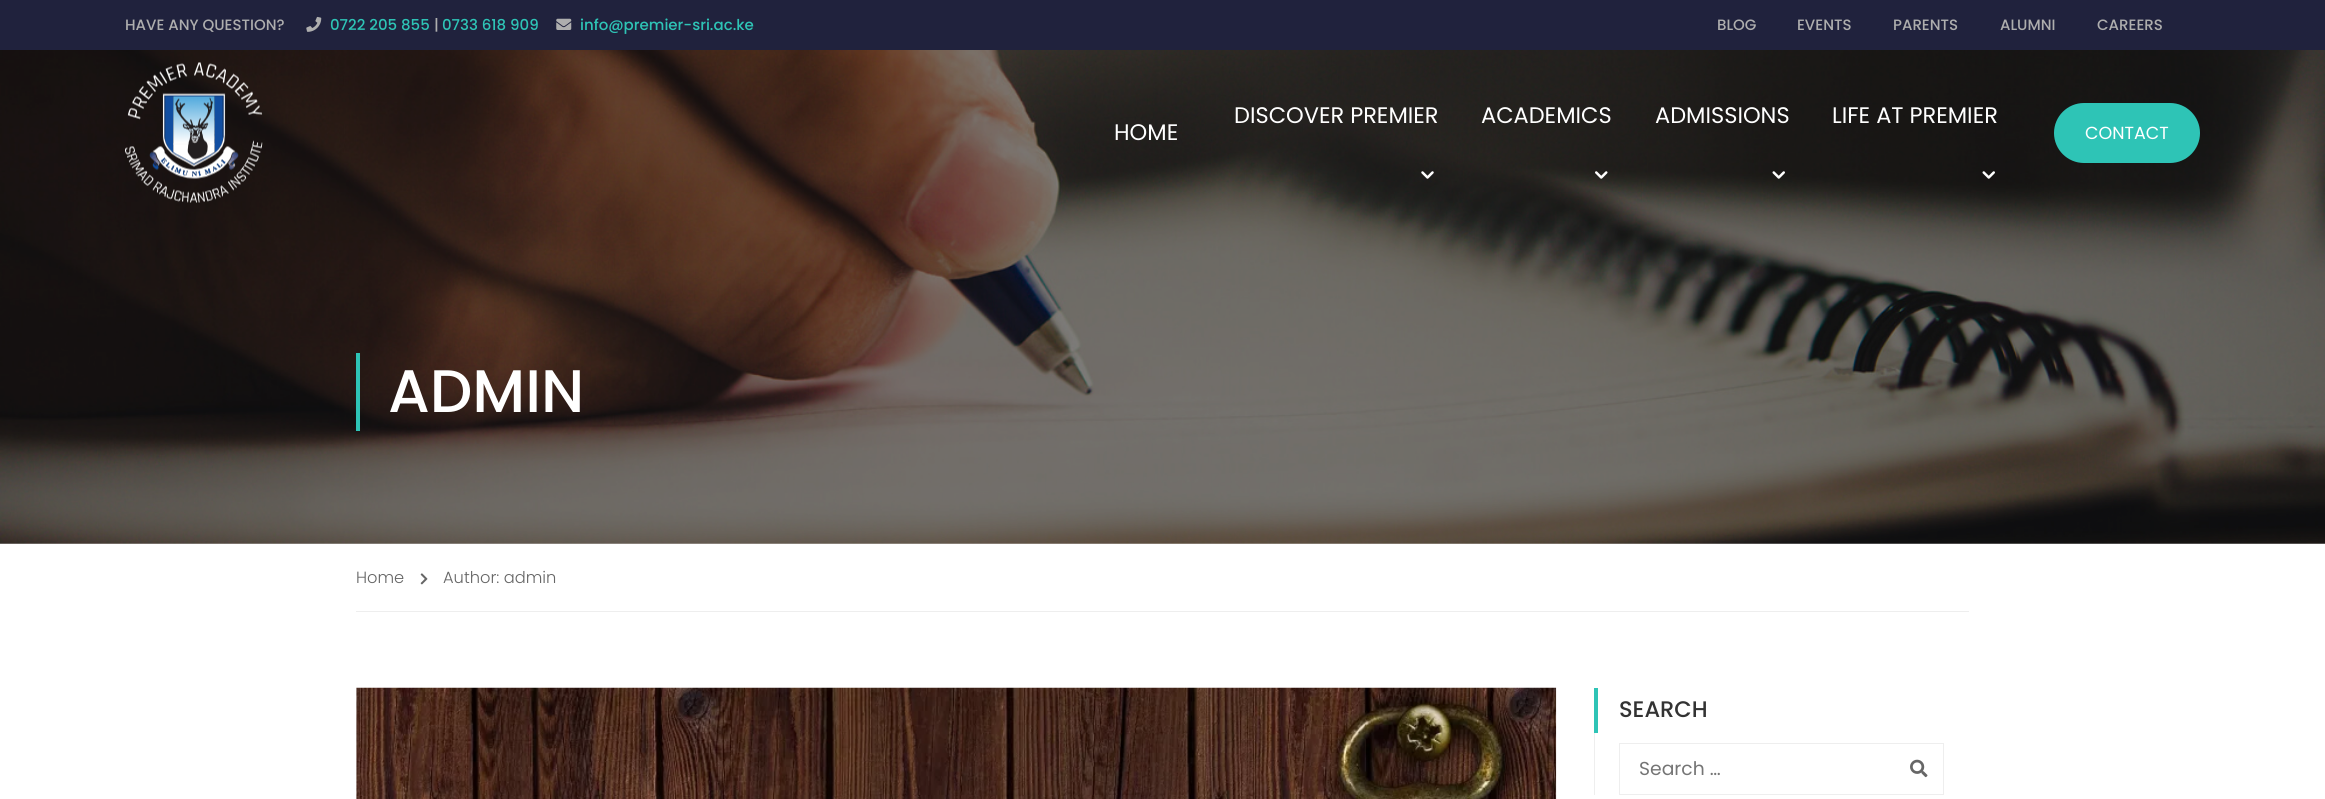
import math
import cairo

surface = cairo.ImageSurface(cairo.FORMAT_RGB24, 2325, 799)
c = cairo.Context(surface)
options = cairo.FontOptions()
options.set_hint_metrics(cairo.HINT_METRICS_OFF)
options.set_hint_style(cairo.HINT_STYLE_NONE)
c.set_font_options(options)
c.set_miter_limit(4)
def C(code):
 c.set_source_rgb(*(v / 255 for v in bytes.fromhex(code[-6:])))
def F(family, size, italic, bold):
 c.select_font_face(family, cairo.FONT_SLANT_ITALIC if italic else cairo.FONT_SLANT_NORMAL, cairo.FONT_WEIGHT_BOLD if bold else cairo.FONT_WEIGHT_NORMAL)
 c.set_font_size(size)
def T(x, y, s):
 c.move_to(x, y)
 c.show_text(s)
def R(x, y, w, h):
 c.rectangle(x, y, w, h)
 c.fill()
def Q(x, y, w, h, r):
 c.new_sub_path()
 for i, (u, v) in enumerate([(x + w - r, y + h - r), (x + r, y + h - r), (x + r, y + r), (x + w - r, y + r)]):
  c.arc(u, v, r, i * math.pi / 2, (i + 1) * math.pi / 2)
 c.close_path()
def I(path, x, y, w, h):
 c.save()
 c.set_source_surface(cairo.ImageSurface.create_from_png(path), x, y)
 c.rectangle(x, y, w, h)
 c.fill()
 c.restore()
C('ffffff')
c.paint()
C('20223d')
R(0,0,2325,50)
F('Poppins Medium',15,0,0)
C('aeaeae')
T(125,30,'HAVE ANY QUESTION?')
I('1.png',306,16,16,16)
C('2ec4b6')
T(330,30,'0722 205 855')
C('aeaeae')
T(434,30,'|')
C('2ec4b6')
T(442,30,'0733 618 909')
I('2.png',556,18,16,12)
T(580,30,'info@premier-sri.ac.ke')
C('aeaeae')
T(1717,30,'BLOG')
T(1797,30,'EVENTS')
T(1893,30,'PARENTS')
T(2000,30,'ALUMNI')
T(2097,30,'CAREERS')
I('8.png',0,50,2325,494)
I('3.png',125,62,138,141)
F('Poppins',22.5,0,0)
C('ffffff')
T(1234,123,'DISCOVER PREMIER')
I('4.png',1421,171,13,8)
T(1481,123,'ACADEMICS')
I('5.png',1595,171,13,8)
T(1655,123,'ADMISSIONS')
I('6.png',1772,171,13,8)
T(1832,123,'LIFE AT PREMIER')
I('7.png',1982,171,13,8)
T(1114,140,'HOME')
C('2ec4b6')
Q(2054,103,146,60,30)
c.fill()
F('Poppins',17.5,0,0)
C('ffffff')
T(2085,139,'CONTACT')
C('2ec4b6')
R(356,353,4,78)
F('Poppins Medium',60,0,0)
C('ffffff')
T(388,412,'ADMIN')
C('eeeeee')
R(356,611,1613,1)
F('Poppins Light',16.25,0,0)
C('666666')
T(356,583,'Home')
I('9.png',420,573,8,12)
T(443,583,'Author: admin')
I('10.png',356,687,1201,112)
C('2ec4b6')
R(1594,688,4,45)
F('Poppins Medium',22.5,0,0)
C('333333')
T(1619,717,'SEARCH')
C('eeeeee')
R(1594,733,1,62)
c.rectangle(1619.5,743.5,324,51)
c.set_line_width(1)
c.stroke()
F('Poppins',18.75,0,0)
C('757575')
T(1639,775,'Search …')
I('11.png',1910,759,18,19)
surface.write_to_png('o.png')
